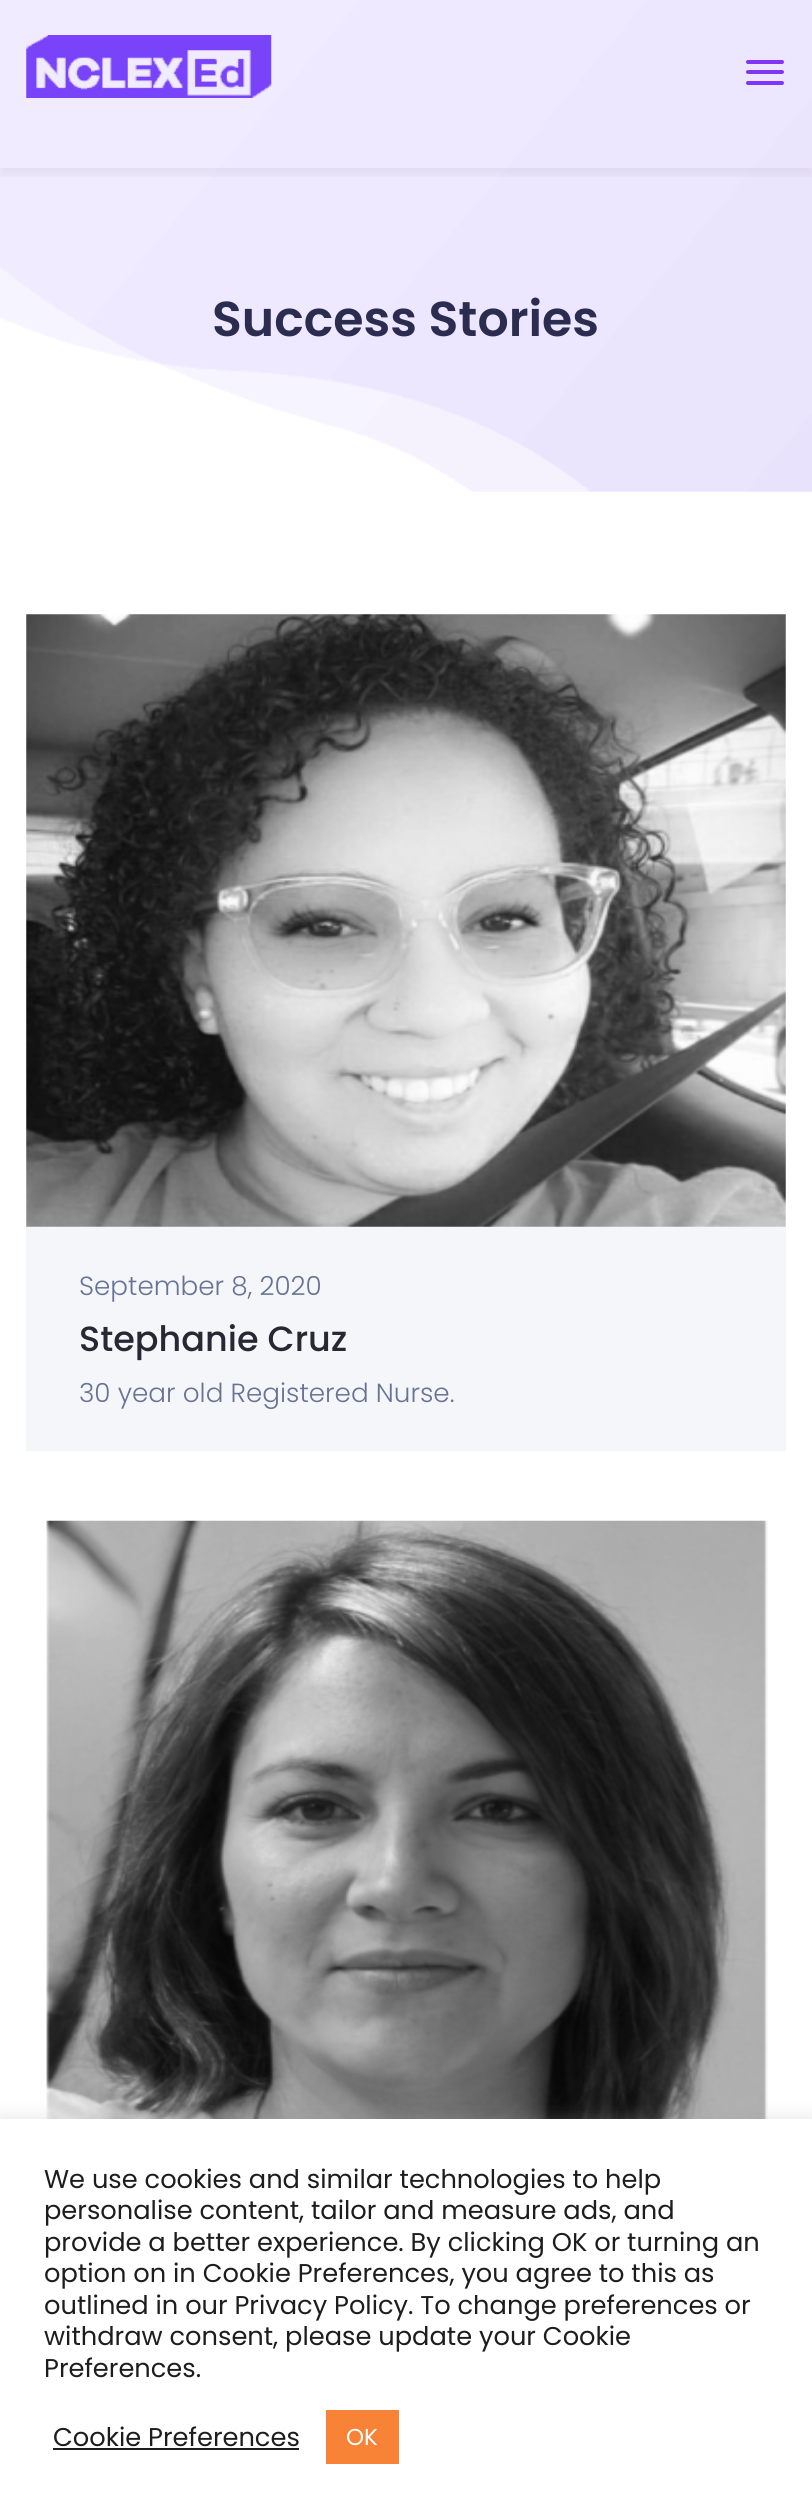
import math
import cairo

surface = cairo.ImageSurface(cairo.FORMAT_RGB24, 812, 2516)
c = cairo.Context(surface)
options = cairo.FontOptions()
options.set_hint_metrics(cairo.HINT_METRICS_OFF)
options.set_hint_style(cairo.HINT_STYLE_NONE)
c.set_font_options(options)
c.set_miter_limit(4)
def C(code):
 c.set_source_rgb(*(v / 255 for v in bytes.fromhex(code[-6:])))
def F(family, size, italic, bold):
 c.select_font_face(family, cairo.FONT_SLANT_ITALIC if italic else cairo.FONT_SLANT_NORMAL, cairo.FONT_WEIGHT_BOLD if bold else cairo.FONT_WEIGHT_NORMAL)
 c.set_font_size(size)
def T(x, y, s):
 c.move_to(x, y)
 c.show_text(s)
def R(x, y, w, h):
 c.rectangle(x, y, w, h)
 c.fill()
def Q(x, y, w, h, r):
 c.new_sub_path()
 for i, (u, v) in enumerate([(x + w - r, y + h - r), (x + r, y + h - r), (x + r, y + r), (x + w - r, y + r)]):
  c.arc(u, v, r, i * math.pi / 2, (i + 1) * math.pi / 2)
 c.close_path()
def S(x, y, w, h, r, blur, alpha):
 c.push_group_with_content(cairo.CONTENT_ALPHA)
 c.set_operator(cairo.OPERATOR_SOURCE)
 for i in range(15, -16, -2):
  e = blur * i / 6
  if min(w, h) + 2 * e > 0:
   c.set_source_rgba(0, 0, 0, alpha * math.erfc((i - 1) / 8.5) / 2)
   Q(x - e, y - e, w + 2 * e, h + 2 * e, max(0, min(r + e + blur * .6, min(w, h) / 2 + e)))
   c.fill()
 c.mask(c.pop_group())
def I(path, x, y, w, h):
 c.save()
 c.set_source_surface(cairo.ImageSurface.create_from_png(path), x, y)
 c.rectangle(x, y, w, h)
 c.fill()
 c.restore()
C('ffffff')
c.paint()
I('2.png',0,0,812,492)
c.save()
c.rectangle(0,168,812,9)
c.clip()
C('0c002e')
S(0,7,812,168,0,5,.06)
c.restore()
I('1.png',26,35,246,63)
C('8235f8')
Q(746,60,38,4,2)
c.fill()
Q(746,70,38,4,2)
c.fill()
Q(746,81,38,4,2)
c.fill()
F('Poppins SemiBold',49,0,0)
C('2c2c51')
T(212,336,'Success Stories')
I('3.png',26,614,760,613)
C('f4f6f9')
R(26,1227,760,224)
F('Poppins Light',26.25,0,0)
C('677294')
T(79,1295,'September 8, 2020')
F('Poppins Medium',35,0,0)
C('282835')
T(79,1351,'Stephanie Cruz')
F('Poppins Light',26.25,0,0)
C('677294')
T(79,1402,'30 year old Registered Nurse.')
I('4.png',46,1520,722,599)
C('acabab')
S(0,2118,812,397,0,9,.3)
C('ffffff')
R(0,2119,812,397)
F('Poppins',25.7,0,0)
C('1d1d1d')
T(44,2188,'We use cookies and similar technologies to help')
T(44,2219,'personalise content, tailor and measure ads, and')
T(44,2251,'provide a better experience. By clicking OK or turning an')
T(44,2282,'option on in Cookie Preferences, you agree to this as')
T(44,2314,'outlined in our Privacy Policy. To change preferences or')
T(44,2345,'withdraw consent, please update your Cookie')
T(44,2377,'Preferences.')
T(53,2446,'Cookie Preferences')
R(53,2448,246,2)
C('f88235')
R(326,2410,73,54)
F('Poppins',23,0,0)
C('ffffff')
T(346,2445,'OK')
surface.write_to_png('o.png')
